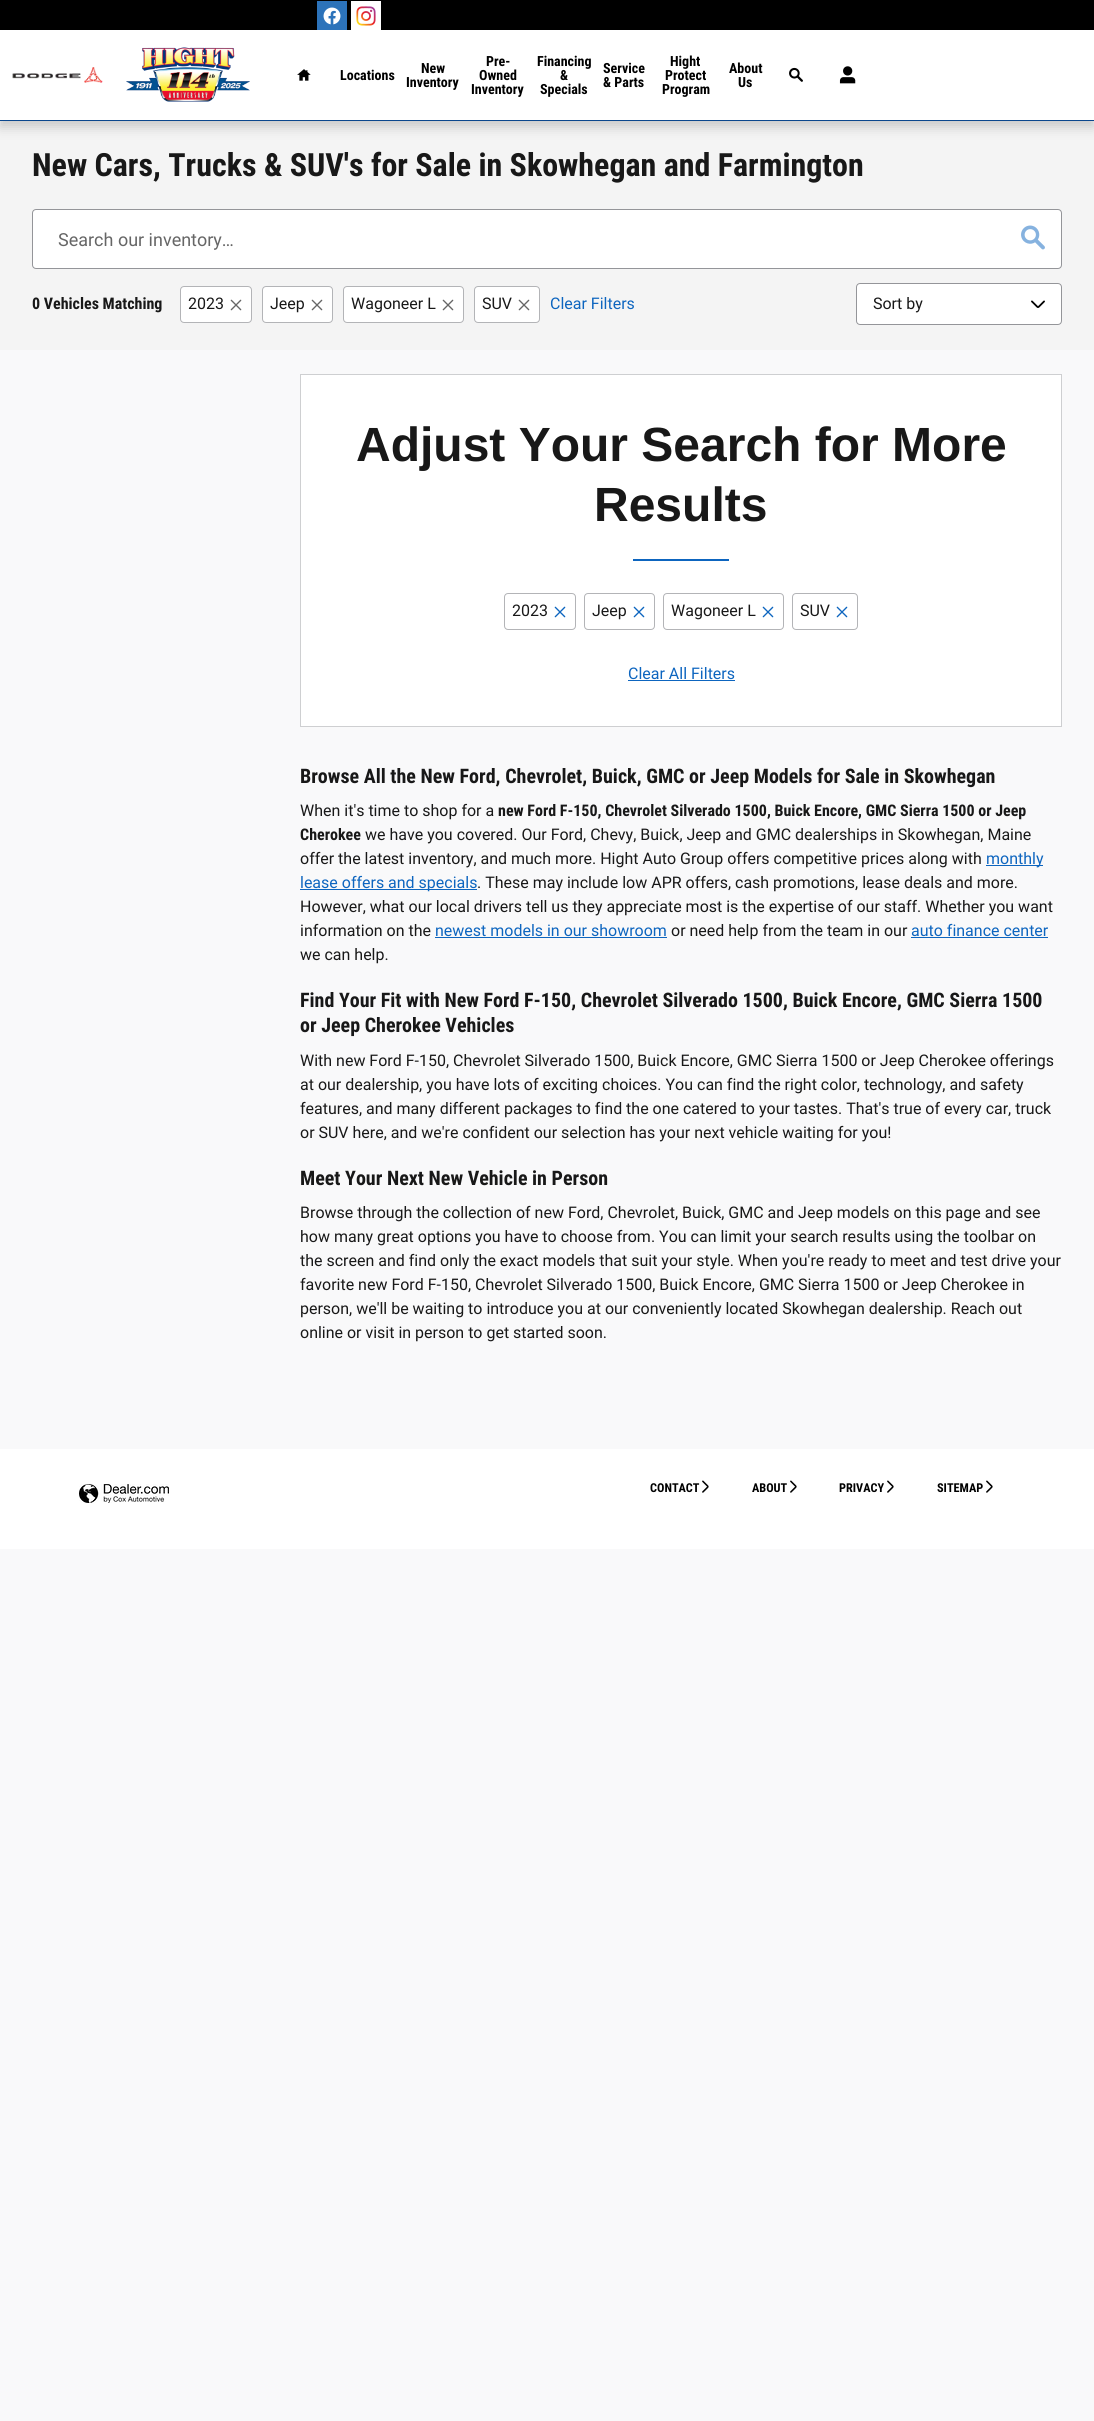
import math
import cairo

surface = cairo.ImageSurface(cairo.FORMAT_RGB24, 1094, 2421)
c = cairo.Context(surface)
options = cairo.FontOptions()
options.set_hint_metrics(cairo.HINT_METRICS_OFF)
options.set_hint_style(cairo.HINT_STYLE_NONE)
c.set_font_options(options)
c.set_miter_limit(4)
def C(code):
 c.set_source_rgb(*(v / 255 for v in bytes.fromhex(code[-6:])))
def F(family, size, italic, bold):
 c.select_font_face(family, cairo.FONT_SLANT_ITALIC if italic else cairo.FONT_SLANT_NORMAL, cairo.FONT_WEIGHT_BOLD if bold else cairo.FONT_WEIGHT_NORMAL)
 c.set_font_size(size)
def T(x, y, s):
 c.move_to(x, y)
 c.show_text(s)
def R(x, y, w, h):
 c.rectangle(x, y, w, h)
 c.fill()
def Q(x, y, w, h, r):
 c.new_sub_path()
 for i, (u, v) in enumerate([(x + w - r, y + h - r), (x + r, y + h - r), (x + r, y + r), (x + w - r, y + r)]):
  c.arc(u, v, r, i * math.pi / 2, (i + 1) * math.pi / 2)
 c.close_path()
def S(x, y, w, h, r, blur, alpha):
 c.push_group_with_content(cairo.CONTENT_ALPHA)
 c.set_operator(cairo.OPERATOR_SOURCE)
 for i in range(15, -16, -2):
  e = blur * i / 6
  if min(w, h) + 2 * e > 0:
   c.set_source_rgba(0, 0, 0, alpha * math.erfc((i - 1) / 8.5) / 2)
   Q(x - e, y - e, w + 2 * e, h + 2 * e, max(0, min(r + e + blur * .6, min(w, h) / 2 + e)))
   c.fill()
 c.mask(c.pop_group())
def I(path, x, y, w, h):
 c.save()
 c.set_source_surface(cairo.ImageSurface.create_from_png(path), x, y)
 c.rectangle(x, y, w, h)
 c.fill()
 c.restore()
C('f9f9fa')
c.paint()
C('f4f4f4')
R(0,121,1094,229)
C('000000')
S(0,6,1094,121,0,6,.18)
C('ffffff')
R(0,30,1094,90)
C('0a468d')
R(0,120,1094,1)
C('000000')
R(0,0,1094,30)
I('1.png',317,1,30,29)
I('2.png',351,1,30,29)
I('3.png',12,67,91,16)
I('4.png',126,47,124,55)
I('5.png',297,69,14,12)
F('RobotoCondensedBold',14,0,1)
T(340,80,'Locations')
T(421,73,'New')
T(406,87,'Inventory')
T(486,66,'Pre-')
T(479,80,'Owned')
T(471,94,'Inventory')
T(537,66,'Financing')
T(560,80,'&')
T(540,94,'Specials')
T(603,73,'Service')
T(603,87,'& Parts')
T(670,66,'Hight')
T(665,80,'Protect')
T(662,94,'Program')
T(729,73,'About')
T(738,87,'Us')
I('6.png',789,67,14,15)
I('7.png',839,66,17,18)
F('RobotoCondensedBold',32,0,1)
C('181818')
T(32,176,'New Cars, Trucks & SUV\'s for Sale in Skowhegan and Farmington')
C('ffffff')
Q(32.5,209.5,1029,59,3.5)
c.fill_preserve()
C('949599')
c.set_line_width(1)
c.stroke()
F('Roboto',18,0,0)
C('666666')
T(58,246,'Search our inventory…')
I('8.png',1021,225,24,25)
F('RobotoCondensedBold',16,0,1)
C('181818')
T(32,309,'0 Vehicles Matching')
C('ffffff')
Q(180.5,286.5,71,36,3.5)
c.fill_preserve()
C('b3b4b7')
c.stroke()
F('Roboto',16,0,0)
C('181818')
T(188,309,'2023')
I('9.png',230,299,12,12)
C('ffffff')
Q(262.5,286.5,70,36,3.5)
c.fill_preserve()
C('b3b4b7')
c.stroke()
C('181818')
T(270,309,'Jeep')
I('9.png',311,299,12,12)
C('ffffff')
Q(343.5,286.5,120,36,3.5)
c.fill_preserve()
C('b3b4b7')
c.stroke()
C('181818')
T(351,309,'Wagoneer L')
I('9.png',442,299,12,12)
C('ffffff')
Q(474.5,286.5,65,36,3.5)
c.fill_preserve()
C('b3b4b7')
c.stroke()
C('181818')
T(482,309,'SUV')
I('9.png',518,299,12,12)
C('0d65bf')
T(550,309,'Clear Filters')
C('ffffff')
Q(856,283,206,42,4)
c.fill()
I('10.png',1031,300,14,8)
Q(856.5,283.5,205,41,3.5)
C('949599')
c.stroke()
C('181818')
T(873,309,'Sort by')
C('ffffff')
c.rectangle(300.5,374.5,761,352)
c.fill_preserve()
C('cecfd1')
c.stroke()
F('Liberation Sans',48,0,1)
C('181818')
T(356,461,'Adjust Your Search for More')
T(594,521,'Results')
C('0d65bf')
R(633,559,96,2)
Q(504.5,593.5,71,36,3.5)
C('b3b4b7')
c.stroke()
F('Roboto',16,0,0)
C('181818')
T(512,616,'2023')
I('11.png',554,606,12,12)
Q(584.5,593.5,70,36,3.5)
C('b3b4b7')
c.stroke()
C('181818')
T(592,616,'Jeep')
I('11.png',633,606,12,12)
Q(663.5,593.5,120,36,3.5)
C('b3b4b7')
c.stroke()
C('181818')
T(671,616,'Wagoneer L')
I('11.png',762,606,12,12)
Q(792.5,593.5,65,36,3.5)
C('b3b4b7')
c.stroke()
C('181818')
T(800,616,'SUV')
I('11.png',836,606,12,12)
C('0d65bf')
T(628,679,'Clear All Filters')
R(628,680,107,1)
F('RobotoCondensedBold',20,0,1)
C('181818')
T(300,783,'Browse All the New Ford, Chevrolet, Buick, GMC or Jeep Models for Sale in Skowhegan')
F('Roboto',16,0,0)
T(300,816,'When it\'s time to shop for a')
F('RobotoCondensedBold',16,0,1)
T(498,816,'new Ford F-150, Chevrolet Silverado 1500, Buick Encore, GMC Sierra 1500 or Jeep')
T(300,840,'Cherokee')
F('Roboto',16,0,0)
T(365,840,'we have you covered. Our Ford, Chevy, Buick, Jeep and GMC dealerships in Skowhegan, Maine')
T(300,864,'offer the latest inventory, and much more. Hight Auto Group offers competitive prices along with')
C('0d65bf')
R(986,865,57,1)
T(986,864,'monthly')
R(300,889,177,1)
T(300,888,'lease offers and specials')
C('181818')
T(477,888,'. These may include low APR offers, cash promotions, lease deals and more.')
T(300,912,'However, what our local drivers tell us they appreciate most is the expertise of our staff. Whether you want')
T(300,936,'information on the')
C('0d65bf')
T(435,936,'newest models in our showroom')
R(435,937,232,1)
C('181818')
T(671,936,'or need help from the team in our')
C('0d65bf')
T(911,936,'auto finance center')
R(911,937,137,1)
C('181818')
T(300,960,'we can help.')
F('RobotoCondensedBold',20,0,1)
T(300,1007,'Find Your Fit with New Ford F-150, Chevrolet Silverado 1500, Buick Encore, GMC Sierra 1500')
T(300,1032,'or Jeep Cherokee Vehicles')
F('Roboto',16,0,0)
T(300,1066,'With new Ford F-150, Chevrolet Silverado 1500, Buick Encore, GMC Sierra 1500 or Jeep Cherokee offerings')
T(300,1090,'at our dealership, you have lots of exciting choices. You can find the right color, technology, and safety')
T(300,1114,'features, and many different packages to find the one catered to your tastes. That\'s true of every car, truck')
T(300,1138,'or SUV here, and we\'re confident our selection has your next vehicle waiting for you!')
F('RobotoCondensedBold',20,0,1)
T(300,1185,'Meet Your Next New Vehicle in Person')
F('Roboto',16,0,0)
T(300,1218,'Browse through the collection of new Ford, Chevrolet, Buick, GMC and Jeep models on this page and see')
T(300,1242,'how many great options you have to choose from. You can limit your search results using the toolbar on')
T(300,1266,'the screen and find only the exact models that suit your style. When you\'re ready to meet and test drive your')
T(300,1290,'favorite new Ford F-150, Chevrolet Silverado 1500, Buick Encore, GMC Sierra 1500 or Jeep Cherokee in')
T(300,1314,'person, we\'ll be waiting to introduce you at our conveniently located Skowhegan dealership. Reach out')
T(300,1338,'online or visit in person to get started soon.')
C('ffffff')
R(0,1449,1094,100)
I('12.png',79,1484,90,19)
F('RobotoCondensedBold',12.25,0,1)
C('000000')
T(650,1492,'CONTACT')
I('13.png',702,1480,7,13)
T(752,1492,'ABOUT')
I('13.png',790,1480,7,13)
T(839,1492,'PRIVACY')
I('13.png',887,1480,7,13)
T(937,1492,'SITEMAP')
I('13.png',986,1480,7,13)
surface.write_to_png('o.png')
